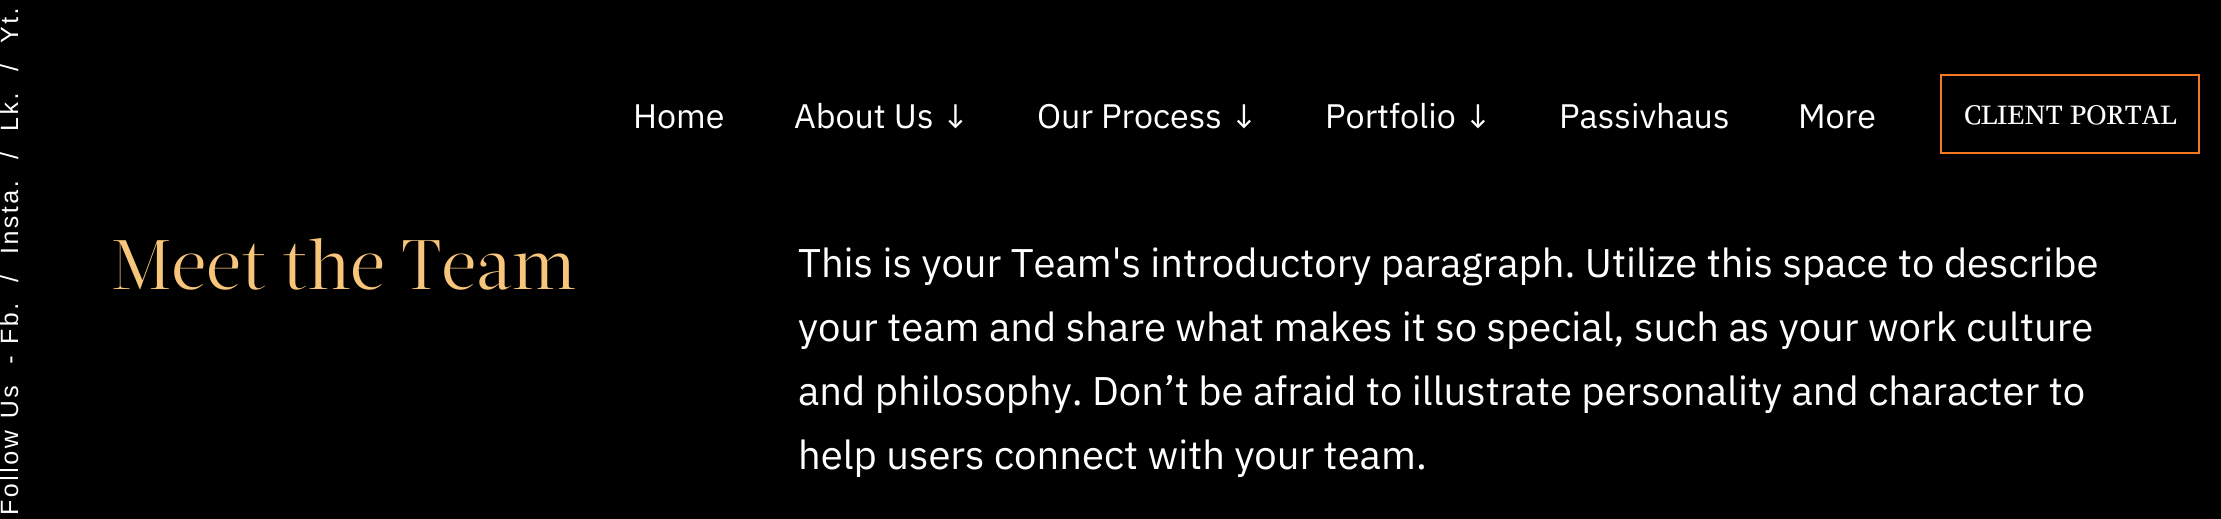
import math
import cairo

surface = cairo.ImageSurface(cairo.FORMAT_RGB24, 2221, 519)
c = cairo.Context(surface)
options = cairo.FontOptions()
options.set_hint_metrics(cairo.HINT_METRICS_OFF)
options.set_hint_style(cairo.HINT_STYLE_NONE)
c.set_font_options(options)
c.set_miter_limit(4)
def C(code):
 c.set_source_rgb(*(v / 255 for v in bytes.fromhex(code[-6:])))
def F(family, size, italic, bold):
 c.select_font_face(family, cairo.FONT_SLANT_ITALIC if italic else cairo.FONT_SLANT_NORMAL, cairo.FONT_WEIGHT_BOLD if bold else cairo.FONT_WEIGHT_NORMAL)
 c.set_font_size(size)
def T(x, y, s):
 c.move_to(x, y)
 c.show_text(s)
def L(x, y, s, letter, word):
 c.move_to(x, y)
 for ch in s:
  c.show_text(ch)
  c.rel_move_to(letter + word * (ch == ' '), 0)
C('000000')
c.paint()
F('Liberation Sans',25,0,0)
C('ffffff')
c.save()
c.translate(18,43)
c.rotate(-90 * math.pi / 180)
L(0,0,'Yt.',2.5,0)
c.restore()
c.save()
c.translate(18,71)
c.rotate(-90 * math.pi / 180)
L(0,0,'/',2.5,0)
c.restore()
c.save()
c.translate(18,131)
c.rotate(-90 * math.pi / 180)
L(0,0,'Lk.',2.5,0)
c.restore()
c.save()
c.translate(18,159)
c.rotate(-90 * math.pi / 180)
L(0,0,'/',2.5,0)
c.restore()
c.save()
c.translate(18,254)
c.rotate(-90 * math.pi / 180)
L(0,0,'Insta.',2.5,0)
c.restore()
c.save()
c.translate(18,282)
c.rotate(-90 * math.pi / 180)
L(0,0,'/',2.5,0)
c.restore()
c.save()
c.translate(18,344)
c.rotate(-90 * math.pi / 180)
L(0,0,'Fb.',2.5,0)
c.restore()
c.save()
c.translate(18,515)
c.rotate(-90 * math.pi / 180)
L(0,0,'Follow Us  -',2.5,0)
c.restore()
F('IBM Plex Sans',34,0,0)
T(633,128,'Home')
T(794,128,'About Us ↓')
T(1037,128,'Our Process ↓')
T(1325,128,'Portfolio ↓')
T(1559,128,'Passivhaus')
T(1798,128,'More')
c.rectangle(1941,75,258,78)
C('f47920')
c.stroke()
F('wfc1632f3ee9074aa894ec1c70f',26,0,0)
C('ffffff')
T(1964,124,'CLIENT PORTAL')
F('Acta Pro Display',69.75,0,0)
C('f8c67a')
T(111,289,'Meet the Team')
F('IBM Plex Sans',40,0,0)
C('ffffff')
T(798,277,'This is your Team\'s introductory paragraph. Utilize this space to describe')
T(798,341,'your team and share what makes it so special, such as your work culture')
T(798,405,'and philosophy. Don’t be afraid to illustrate personality and character to')
T(798,469,'help users connect with your team.')
surface.write_to_png('o.png')
